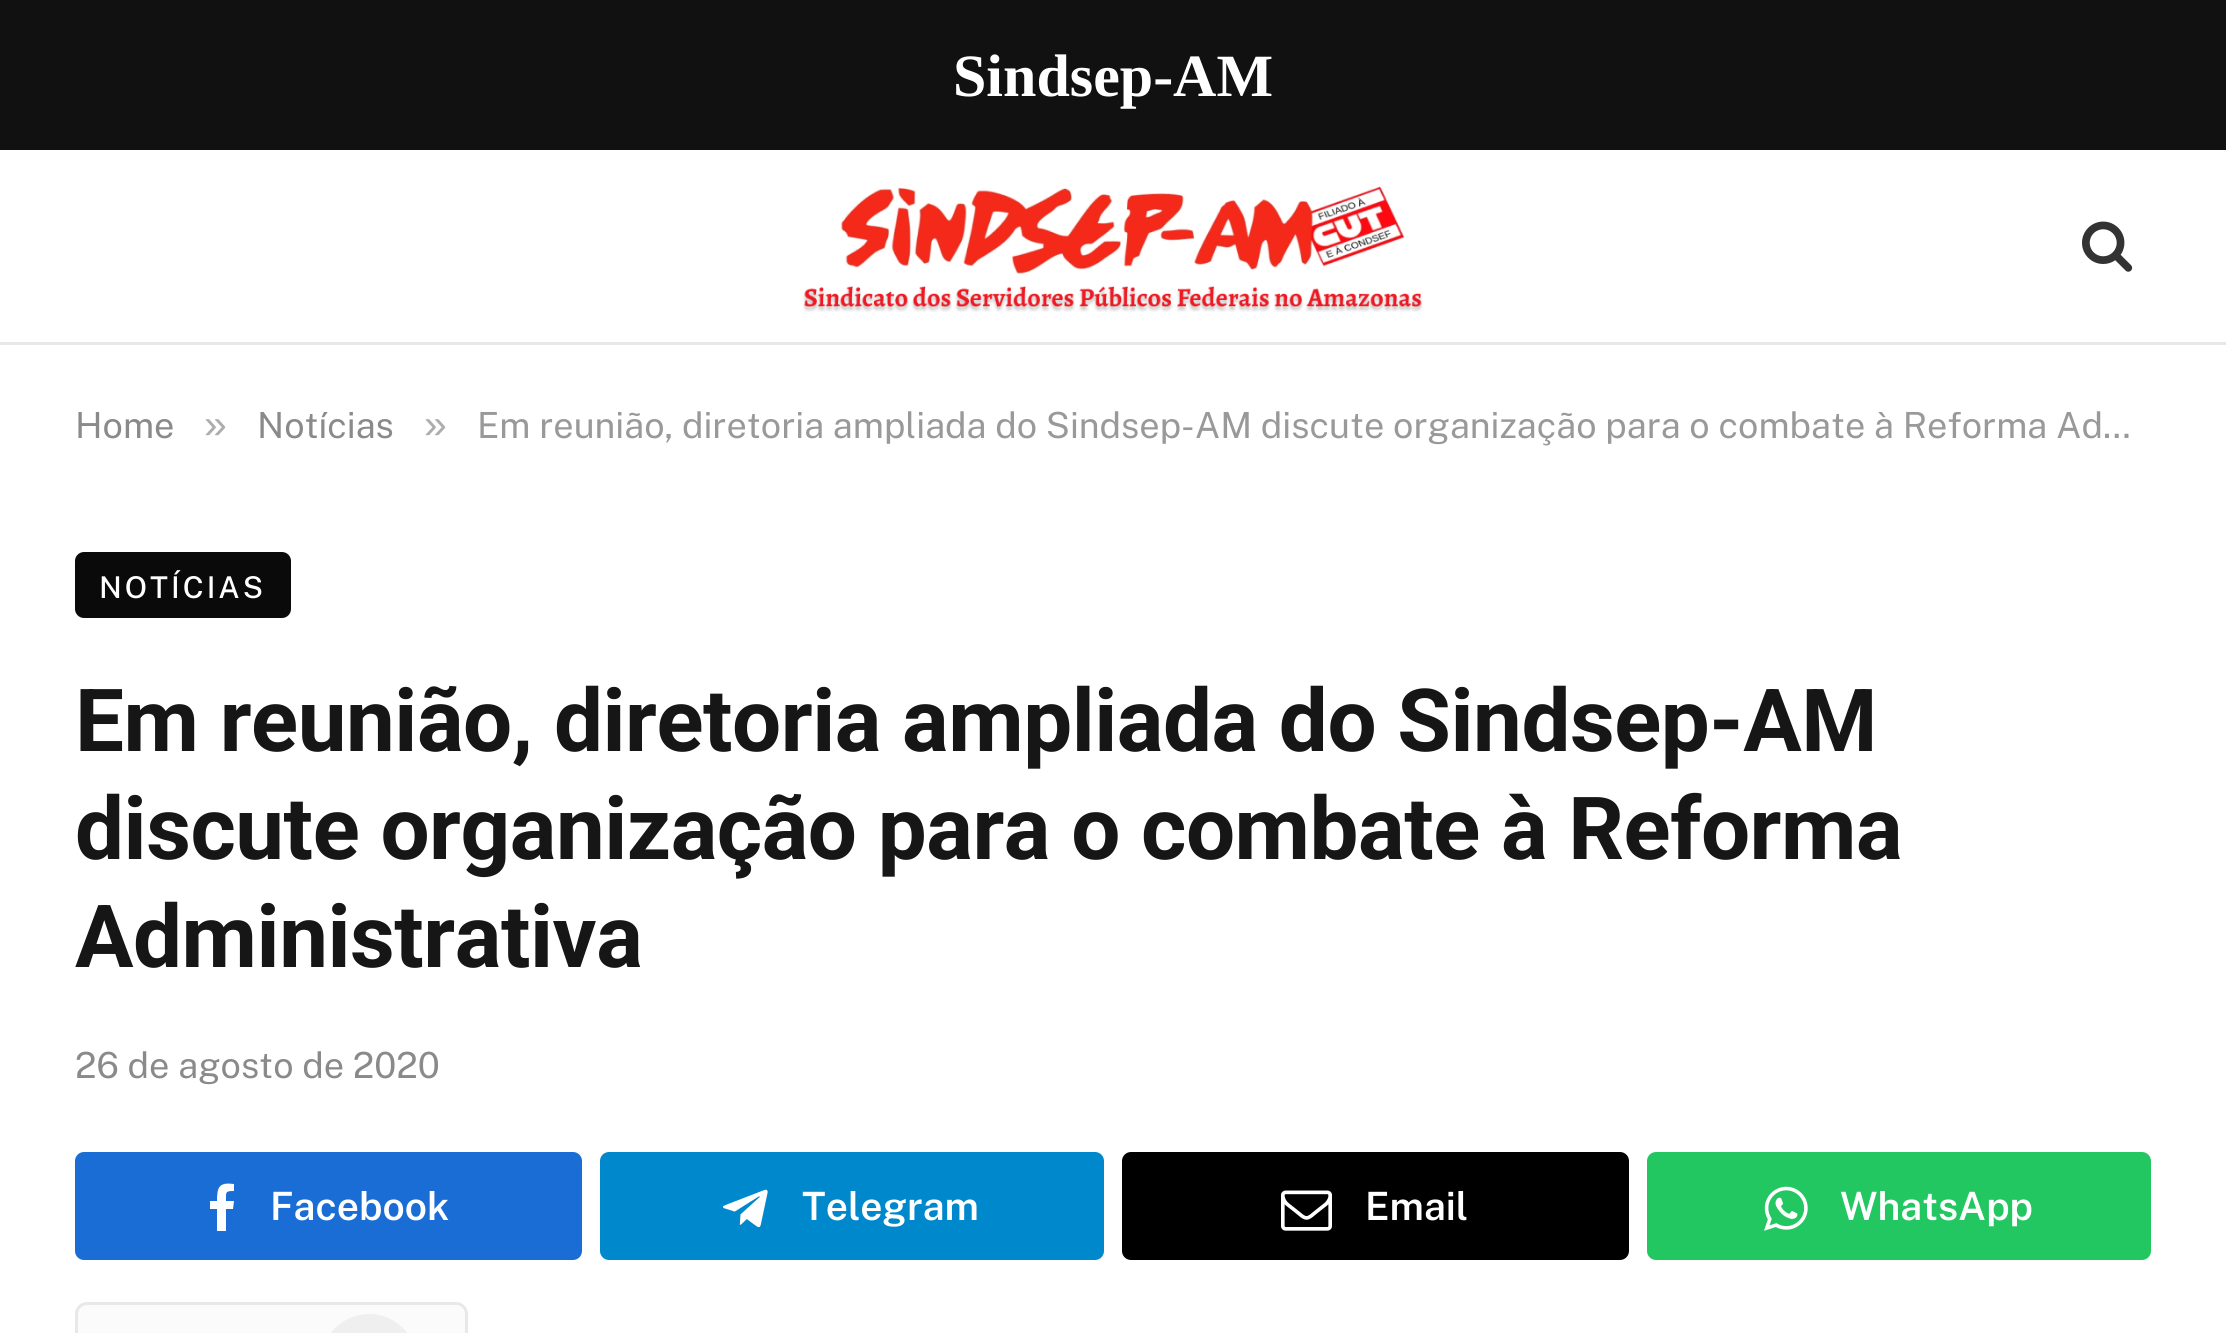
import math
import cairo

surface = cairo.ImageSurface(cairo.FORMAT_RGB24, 2226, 1333)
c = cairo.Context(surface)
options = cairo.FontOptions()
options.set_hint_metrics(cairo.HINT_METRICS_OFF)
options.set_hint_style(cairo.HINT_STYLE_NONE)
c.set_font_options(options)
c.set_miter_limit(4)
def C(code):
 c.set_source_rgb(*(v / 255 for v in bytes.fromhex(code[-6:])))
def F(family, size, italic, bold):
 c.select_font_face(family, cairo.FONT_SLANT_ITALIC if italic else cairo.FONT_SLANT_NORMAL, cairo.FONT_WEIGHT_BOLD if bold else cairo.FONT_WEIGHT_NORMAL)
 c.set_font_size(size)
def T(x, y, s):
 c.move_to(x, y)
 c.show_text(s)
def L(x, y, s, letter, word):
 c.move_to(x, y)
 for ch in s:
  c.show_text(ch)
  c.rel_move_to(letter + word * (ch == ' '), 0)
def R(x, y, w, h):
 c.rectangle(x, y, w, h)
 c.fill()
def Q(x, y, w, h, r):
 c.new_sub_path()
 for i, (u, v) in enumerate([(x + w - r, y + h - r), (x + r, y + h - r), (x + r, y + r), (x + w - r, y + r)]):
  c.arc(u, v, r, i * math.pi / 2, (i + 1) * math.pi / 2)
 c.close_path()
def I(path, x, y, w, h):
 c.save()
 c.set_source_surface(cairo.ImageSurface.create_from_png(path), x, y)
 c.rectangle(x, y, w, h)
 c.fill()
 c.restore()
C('ffffff')
c.paint()
C('111111')
R(0,0,2226,150)
F('Liberation Serif',60,0,1)
C('ffffff')
T(953,96,'Sindsep-AM')
C('e8e8e8')
R(0,342,2226,3)
I('1.png',803,186,620,126)
I('2.png',2082,221,51,51)
F('Public Sans',36,0,0)
C('8a8a8a')
T(75,438,'Home')
F('Liberation Sans',41,0,0)
C('adadad')
T(204,438,'»')
F('Public Sans',36,0,0)
C('8a8a8a')
T(257,438,'Notícias')
F('Liberation Sans',41,0,0)
C('adadad')
T(424,438,'»')
F('Public Sans',36,0,0)
C('999999')
T(477,438,'Em reunião, diretoria ampliada do Sindsep-AM discute organização para o combate à Reforma Ad…')
C('0a0a0a')
Q(75,552,216,66,9)
c.fill()
F('Public Sans Medium',30,0,0)
C('ffffff')
L(99,598,'NOTÍCIAS',3,0)
F('Roboto',87.05,0,1)
C('161616')
L(75,751,'Em reunião, diretoria ampliada do Sindsep-AM',-.45,0)
L(75,859,'discute organização para o combate à Reforma',-.45,0)
L(75,967,'Administrativa',-.45,0)
F('Public Sans',36,0,0)
C('8a8a8a')
T(75,1078,'26 de agosto de 2020')
C('1a6dd4')
Q(75,1152,507,108,9)
c.fill()
C('ffffff')
c.new_path()
c.move_to(234,1184)
c.line_to(234,1191)
c.curve_to(225,1191,226,1192,226,1201)
c.line_to(234,1201)
c.line_to(233,1209)
c.line_to(226,1209)
c.line_to(226,1231)
c.line_to(217,1231)
c.line_to(217,1209)
c.line_to(210,1209)
c.line_to(210,1201)
c.line_to(217,1201)
c.curve_to(217,1187,219,1182,234,1184)
c.close_path()
c.fill()
F('Public Sans SemiBold',39,0,0)
T(270,1220,'Facebook')
C('0088cc')
Q(600,1152,504,108,9)
c.fill()
I('3.png',723,1189,45,39)
C('ffffff')
T(802,1220,'Telegram')
C('000000')
Q(1122,1152,507,108,9)
c.fill()
I('4.png',1281,1190,51,41)
C('ffffff')
T(1365,1220,'Email')
C('23c761')
Q(1647,1152,504,108,9)
c.fill()
I('5.png',1764,1186,44,45)
C('ffffff')
T(1840,1220,'WhatsApp')
C('fbfbfb')
Q(76.5,1303.5,390,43,10.5)
c.fill_preserve()
C('e8e8e8')
c.set_line_width(3)
c.stroke()
C('efefef')
Q(321,1314,96,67,48)
c.fill()
surface.write_to_png('o.png')
